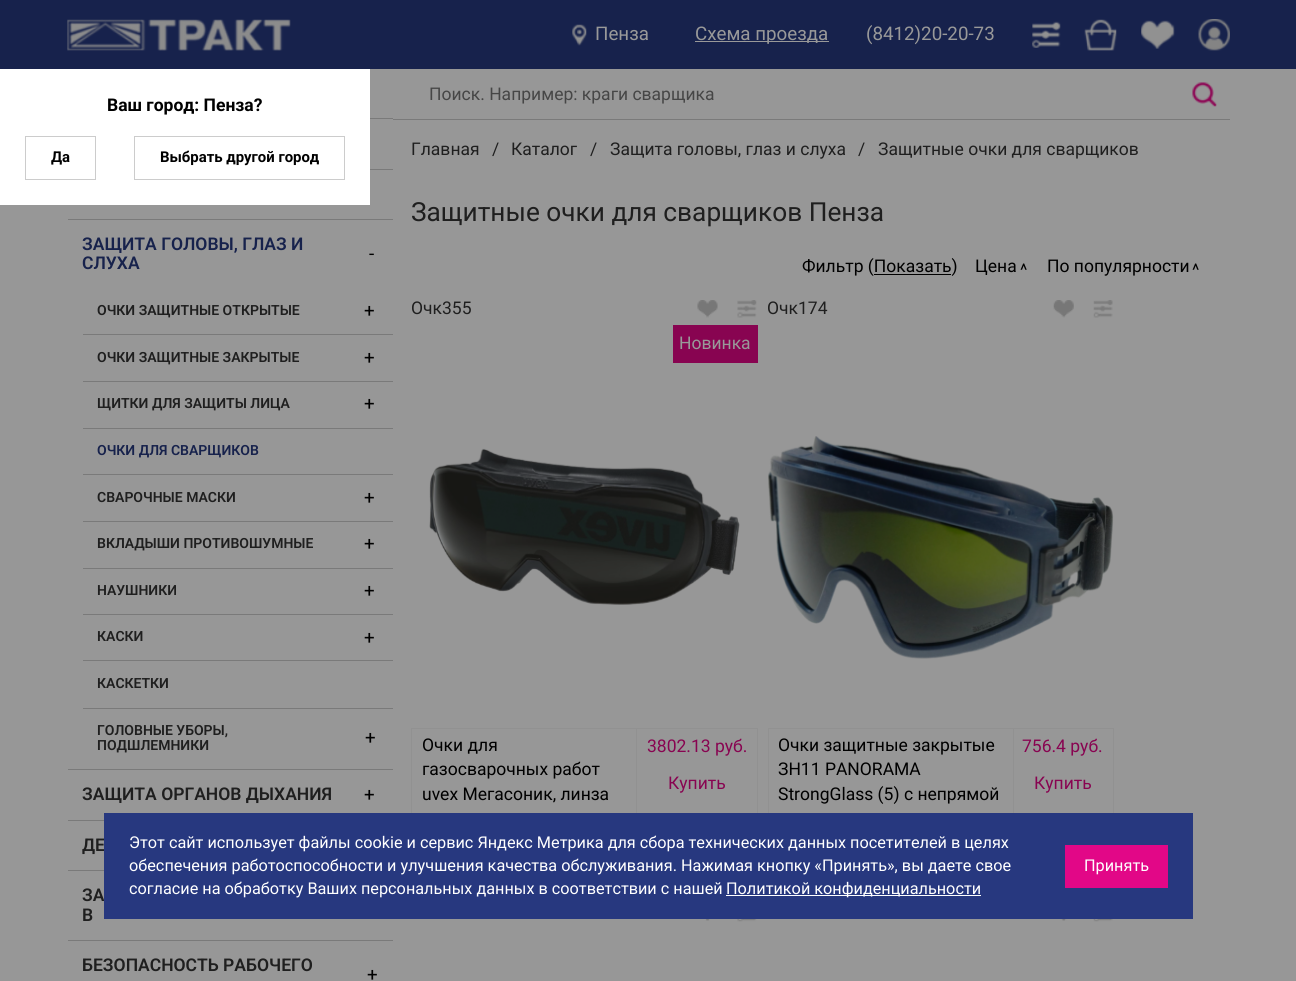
import math
import cairo

surface = cairo.ImageSurface(cairo.FORMAT_RGB24, 1296, 981)
c = cairo.Context(surface)
options = cairo.FontOptions()
options.set_hint_metrics(cairo.HINT_METRICS_OFF)
options.set_hint_style(cairo.HINT_STYLE_NONE)
c.set_font_options(options)
c.set_miter_limit(4)
def C(code):
 c.set_source_rgb(*(v / 255 for v in bytes.fromhex(code[-6:])))
def F(family, size, italic, bold):
 c.select_font_face(family, cairo.FONT_SLANT_ITALIC if italic else cairo.FONT_SLANT_NORMAL, cairo.FONT_WEIGHT_BOLD if bold else cairo.FONT_WEIGHT_NORMAL)
 c.set_font_size(size)
def T(x, y, s):
 c.move_to(x, y)
 c.show_text(s)
def R(x, y, w, h):
 c.rectangle(x, y, w, h)
 c.fill()
def I(path, x, y, w, h):
 c.save()
 c.set_source_surface(cairo.ImageSurface.create_from_png(path), x, y)
 c.rectangle(x, y, w, h)
 c.fill()
 c.restore()
C('979797')
c.paint()
C('17224c')
R(0,0,1296,69)
I('1.png',67,19,224,32)
I('2.png',572,24,15,22)
F('Roboto',18.75,0,0)
C('999999')
T(595,40,'Пенза')
R(695,41,134,1)
T(695,40,'Схема проезда')
T(866,40,'(8412)20-20-73')
I('3.png',1032,21,29,27)
I('4.png',1084,19,33,32)
I('5.png',1141,20,34,29)
I('6.png',1198,19,32,32)
C('ffffff')
R(0,69,370,136)
F('Roboto',17.5,0,1)
C('000000')
T(107,111,'Ваш город: Пенза?')
c.rectangle(25.5,136.5,70,43)
C('cccccc')
c.set_line_width(1)
c.stroke()
F('Roboto',14.9,0,1)
C('000000')
T(51,162,'Да')
c.rectangle(134.5,136.5,210,43)
C('cccccc')
c.stroke()
C('000000')
T(160,162,'Выбрать другой город')
C('7a7a7a')
R(393,119,837,1)
F('Roboto',17.5,0,0)
C('464646')
T(429,100,'Поиск. Например: краги сварщика')
I('7.png',1192,82,25,25)
C('1f1f1f')
T(411,155,'Главная')
T(492,155,'/')
T(511,155,'Каталог')
T(590,155,'/')
T(610,155,'Защита головы, глаз и слуха')
T(858,155,'/')
T(878,155,'Защитные очки для сварщиков')
F('Roboto',26.25,0,0)
T(411,221,'Защитные очки для сварщиков Пенза')
F('Roboto',17.5,0,0)
C('000000')
T(802,272,'Фильтр (Показать)')
R(874,274,77,1)
T(975,272,'Цена')
T(1020,276,'^')
T(1047,272,'По популярности')
T(1192,276,'^')
C('1f1f1f')
T(411,314,'Очк355')
I('8.png',697,300,21,18)
I('9.png',737,300,20,18)
C('880451')
R(673,325,85,38)
C('999999')
T(679,349,'Новинка')
I('10.png',429,448,311,157)
c.rectangle(411.5,728.5,346,134)
C('919191')
c.stroke()
C('000000')
T(422,751,'Очки для')
T(422,775,'газосварочных работ')
T(422,800,'uvex Мегасоник, линза')
C('919191')
R(636,729,1,84)
C('880451')
T(647,752,'3802.13 руб.')
T(668,789,'Купить')
C('1f1f1f')
T(767,314,'Очк174')
I('11.png',1053,300,21,18)
I('12.png',1093,300,20,18)
I('13.png',768,436,346,223)
c.rectangle(768.5,728.5,345,134)
C('919191')
c.stroke()
C('000000')
T(778,751,'Очки защитные закрытые')
T(778,775,'ЗН11 PANORAMA')
T(778,800,'StrongGlass (5) с непрямой')
C('919191')
R(1013,729,1,84)
C('880451')
T(1022,752,'756.4 руб.')
T(1034,789,'Купить')
I('14.png',705,919,5,2)
I('15.png',737,919,20,3)
I('16.png',1061,919,6,2)
I('17.png',1093,919,20,3)
C('7a7a7a')
R(370,118,23,1)
R(370,169,23,1)
R(68,219,325,1)
R(68,769,325,1)
F('Roboto SemiBold',17.5,0,0)
C('17224c')
T(82,250,'ЗАЩИТА ГОЛОВЫ, ГЛАЗ И')
T(82,269,'СЛУХА')
F('Roboto',18.75,0,0)
C('000000')
T(369,260,'-')
C('7a7a7a')
R(83,334,310,1)
F('Roboto SemiBold',14,0,0)
C('1f1f1f')
T(97,315,'ОЧКИ ЗАЩИТНЫЕ ОТКРЫТЫЕ')
F('Roboto',18.75,0,0)
C('000000')
T(364,317,'+')
C('7a7a7a')
R(83,381,310,1)
F('Roboto SemiBold',14,0,0)
C('1f1f1f')
T(97,362,'ОЧКИ ЗАЩИТНЫЕ ЗАКРЫТЫЕ')
F('Roboto',18.75,0,0)
C('000000')
T(364,364,'+')
C('7a7a7a')
R(83,428,310,1)
F('Roboto SemiBold',14,0,0)
C('1f1f1f')
T(97,408,'ЩИТКИ ДЛЯ ЗАЩИТЫ ЛИЦА')
F('Roboto',18.75,0,0)
C('000000')
T(364,410,'+')
C('7a7a7a')
R(83,474,310,1)
F('Roboto SemiBold',14,0,0)
C('17224c')
T(97,455,'ОЧКИ ДЛЯ СВАРЩИКОВ')
C('7a7a7a')
R(83,521,310,1)
C('1f1f1f')
T(97,502,'СВАРОЧНЫЕ МАСКИ')
F('Roboto',18.75,0,0)
C('000000')
T(364,504,'+')
C('7a7a7a')
R(83,568,310,1)
F('Roboto SemiBold',14,0,0)
C('1f1f1f')
T(97,548,'ВКЛАДЫШИ ПРОТИВОШУМНЫЕ')
F('Roboto',18.75,0,0)
C('000000')
T(364,550,'+')
C('7a7a7a')
R(83,614,310,1)
F('Roboto SemiBold',14,0,0)
C('1f1f1f')
T(97,595,'НАУШНИКИ')
F('Roboto',18.75,0,0)
C('000000')
T(364,597,'+')
C('7a7a7a')
R(83,660,310,1)
F('Roboto SemiBold',14,0,0)
C('1f1f1f')
T(97,641,'КАСКИ')
F('Roboto',18.75,0,0)
C('000000')
T(364,644,'+')
C('7a7a7a')
R(83,708,310,1)
F('Roboto SemiBold',14,0,0)
C('1f1f1f')
T(97,688,'КАСКЕТКИ')
T(97,735,'ГОЛОВНЫЕ УБОРЫ,')
T(97,750,'ПОДШЛЕМНИКИ')
F('Roboto',18.75,0,0)
C('000000')
T(365,744,'+')
C('7a7a7a')
R(68,820,36,1)
F('Roboto SemiBold',17.5,0,0)
C('1f1f1f')
T(82,800,'ЗАЩИТА ОРГАНОВ ДЫХАНИЯ')
F('Roboto',18.75,0,0)
C('000000')
T(364,801,'+')
C('7a7a7a')
R(68,870,36,1)
F('Roboto SemiBold',17.5,0,0)
C('1f1f1f')
T(82,851,'ДЕ')
C('7a7a7a')
R(68,940,325,1)
C('1f1f1f')
T(82,901,'ЗА')
T(82,921,'В')
T(82,971,'БЕЗОПАСНОСТЬ РАБОЧЕГО')
F('Roboto',18.75,0,0)
C('000000')
T(367,981,'+')
C('27387f')
R(104,813,1089,106)
F('Roboto',16.25,0,0)
C('ffffff')
T(129,848,'Этот сайт использует файлы cookie и сервис Яндекс Метрика для сбора технических данных посетителей в целях')
T(129,871,'обеспечения работоспособности и улучшения качества обслуживания. Нажимая кнопку «Принять», вы даете свое')
T(129,894,'согласие на обработку Ваших персональных данных в соответствии с нашей')
R(726,895,255,1)
T(726,894,'Политикой конфиденциальности')
C('e20787')
R(1065,845,103,43)
C('ffffff')
T(1084,871,'Принять')
surface.write_to_png('o.png')
